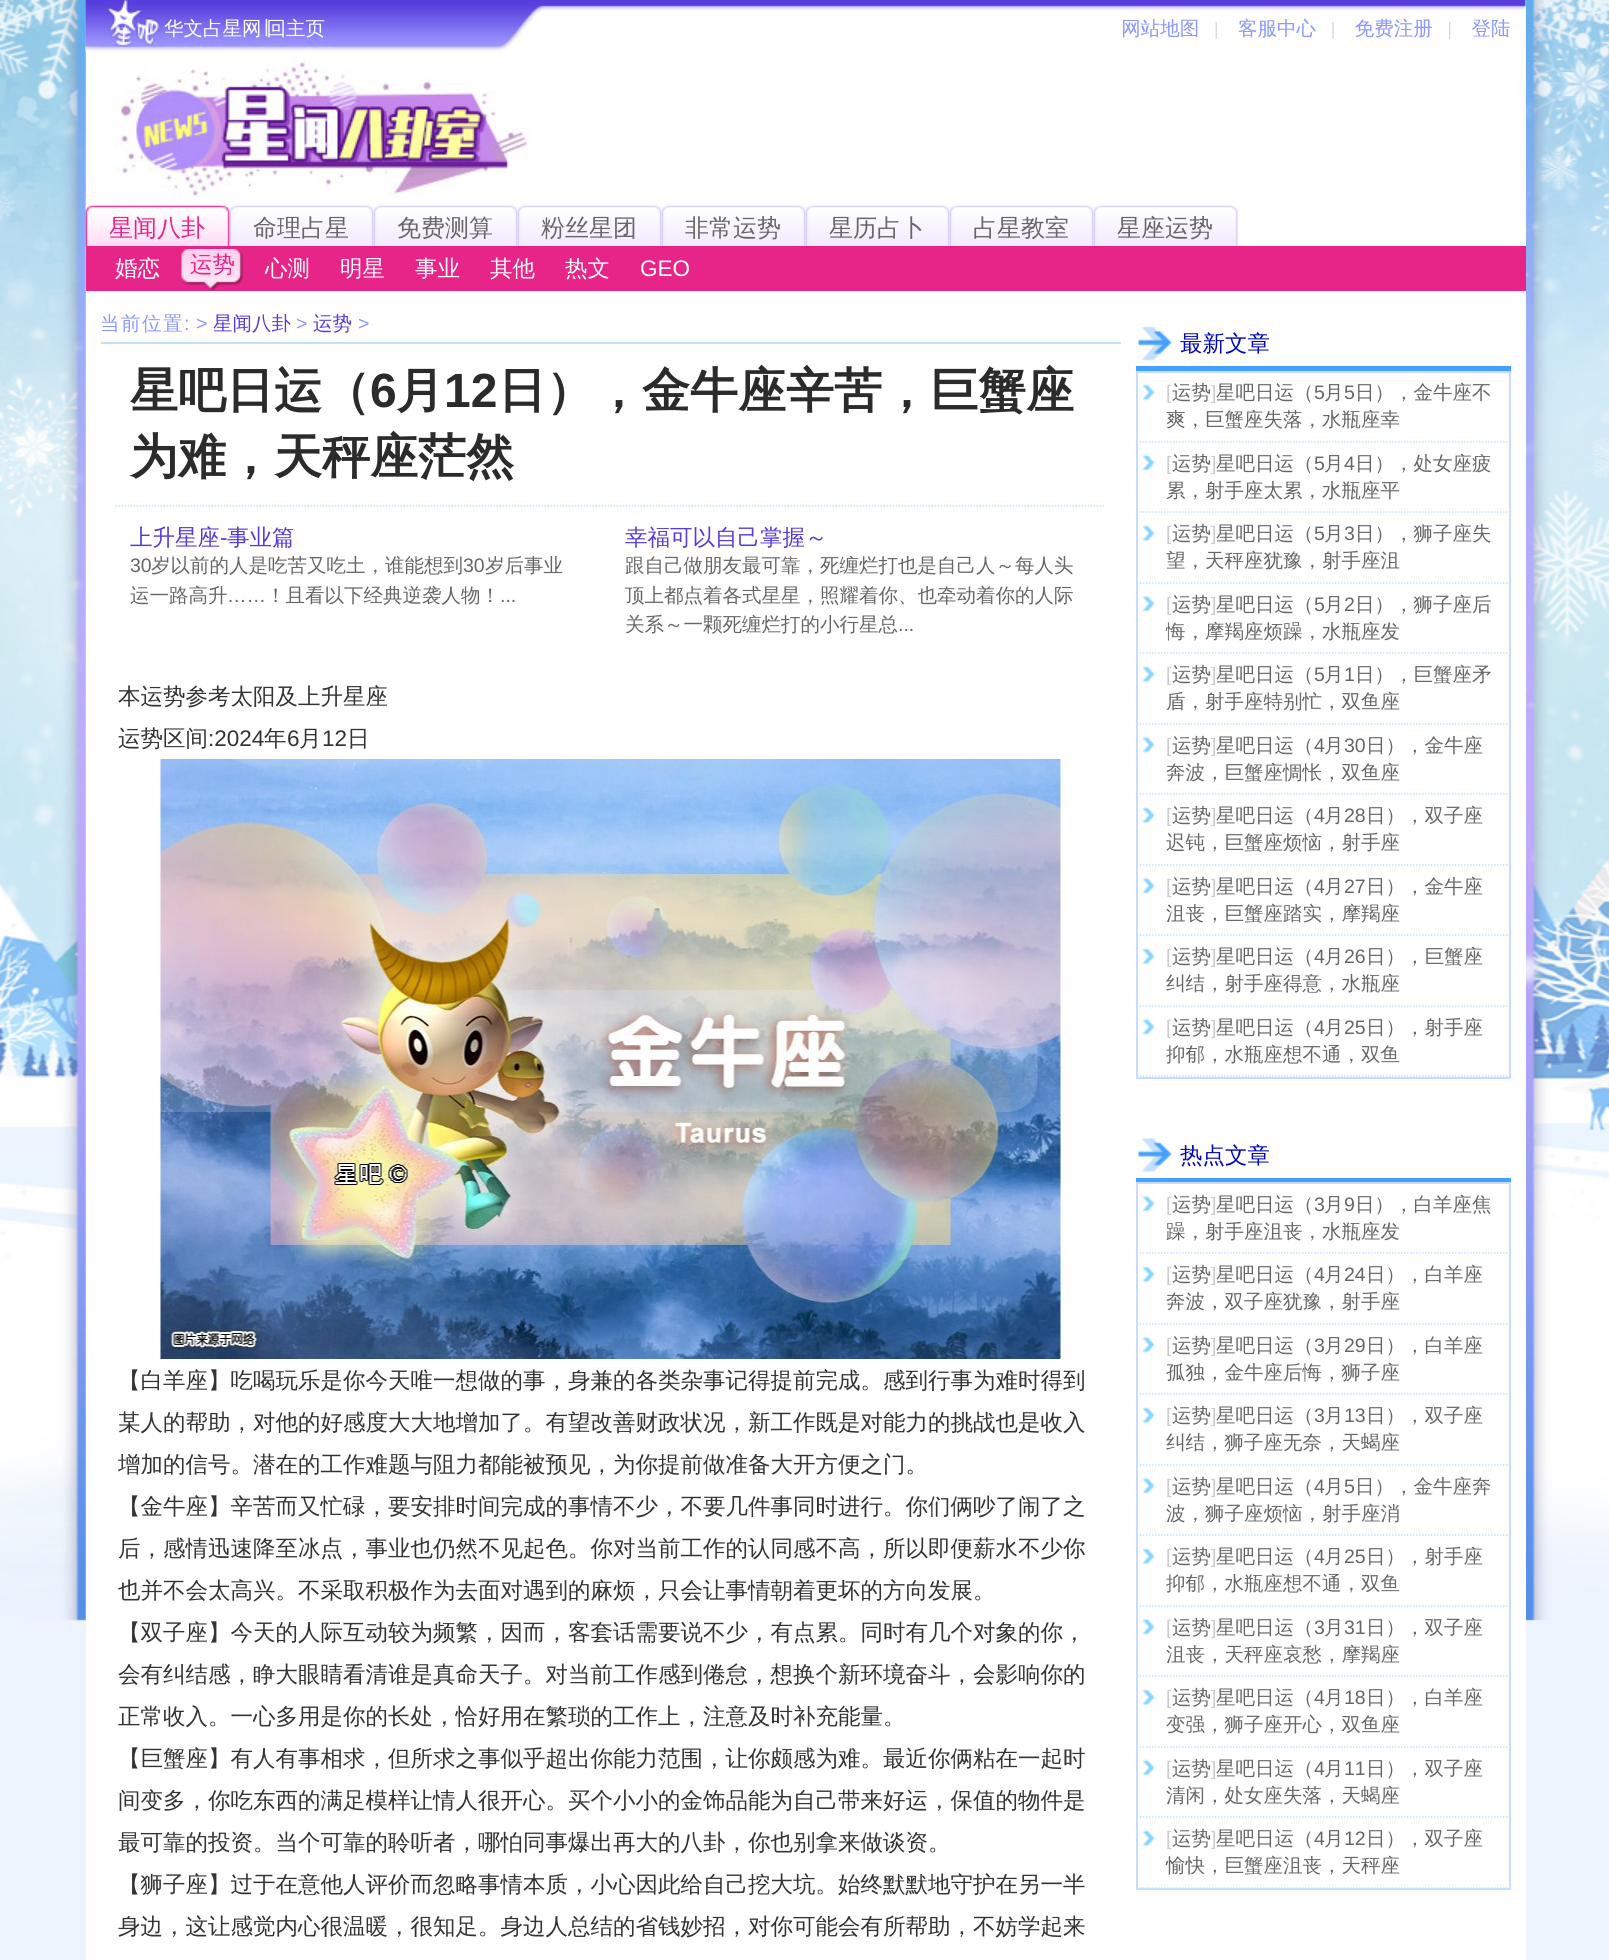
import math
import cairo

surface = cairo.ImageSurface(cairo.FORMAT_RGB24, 1609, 1960)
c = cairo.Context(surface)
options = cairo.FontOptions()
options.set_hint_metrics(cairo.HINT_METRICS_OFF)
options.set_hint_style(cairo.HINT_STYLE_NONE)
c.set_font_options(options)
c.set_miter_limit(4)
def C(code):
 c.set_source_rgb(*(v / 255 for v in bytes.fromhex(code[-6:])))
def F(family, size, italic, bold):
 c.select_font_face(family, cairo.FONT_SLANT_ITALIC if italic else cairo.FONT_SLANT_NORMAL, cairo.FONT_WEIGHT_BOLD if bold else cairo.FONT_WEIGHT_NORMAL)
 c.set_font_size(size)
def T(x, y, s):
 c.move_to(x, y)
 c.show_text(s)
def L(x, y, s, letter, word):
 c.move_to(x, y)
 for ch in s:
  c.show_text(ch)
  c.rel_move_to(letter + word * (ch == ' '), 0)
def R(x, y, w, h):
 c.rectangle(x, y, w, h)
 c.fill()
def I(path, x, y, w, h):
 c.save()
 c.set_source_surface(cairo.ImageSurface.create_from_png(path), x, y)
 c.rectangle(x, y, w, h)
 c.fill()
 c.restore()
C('edf4fe')
c.paint()
I('1.png',0,0,1609,1621)
C('ffffff')
R(86,0,1440,246)
I('2.png',85,0,1441,52)
I('3.png',100,0,65,47)
F('WenQuanYi Zen Hei Medium',19.5,0,0)
T(164,35,'华文占星网∣回主页')
I('4.png',1123,18,387,21)
I('5.png',113,57,419,141)
C('e72487')
R(86,246,1440,45)
I('6.png',85,205,145,41)
F('WenQuanYi Zen Hei Medium',24,0,0)
T(109,236,'星闻八卦')
I('7.png',229,205,145,41)
C('666666')
T(253,236,'命理占星')
I('8.png',373,205,145,41)
T(397,236,'免费测算')
I('8.png',517,205,145,41)
T(541,236,'粉丝星团')
I('8.png',661,205,145,41)
T(685,236,'非常运势')
I('9.png',805,205,145,41)
T(829,236,'星历占卜')
I('9.png',949,205,145,41)
T(973,236,'占星教室')
I('10.png',1093,205,145,41)
T(1117,236,'星座运势')
F('WenQuanYi Zen Hei Medium',22.5,0,0)
C('ffffff')
T(115,276,'婚恋')
I('11.png',181,249,62,42)
C('e72487')
T(190,272,'运势')
C('ffffff')
T(265,276,'心测')
T(340,276,'明星')
T(415,276,'事业')
T(490,276,'其他')
T(565,276,'热文')
F('Liberation Sans',22.5,0,0)
T(640,276,'GEO')
R(86,291,1440,1669)
C('c1dfff')
R(101,342,1020,2)
F('WenQuanYi Zen Hei Medium',19.5,0,0)
C('8a98ff')
L(100,330,'当前位置',1.5,0)
F('Liberation Sans',19.5,0,0)
L(184,330,':',1.5,0)
T(196,330,'>')
F('WenQuanYi Zen Hei Medium',19.5,0,0)
C('563bdb')
T(213,330,'星闻八卦')
F('Liberation Sans',19.5,0,0)
C('8a98ff')
T(296,330,'>')
F('WenQuanYi Zen Hei Medium',19.5,0,0)
C('563bdb')
T(313,330,'运势')
F('Liberation Sans',19.5,0,0)
C('8a98ff')
T(358,330,'>')
F('WenQuanYi Zen Hei',48,0,1)
C('2b2b2b')
T(130,407,'星吧日运（')
F('Liberation Sans',48,0,1)
T(370,407,'6')
F('WenQuanYi Zen Hei',48,0,1)
T(396,407,'月')
F('Liberation Sans',48,0,1)
T(444,407,'12')
F('WenQuanYi Zen Hei',48,0,1)
T(498,407,'日），金牛座辛苦，巨蟹座')
T(130,473,'为难，天秤座茫然')
c.new_path()
c.move_to(115.5,506)
c.line_to(1105.5,506)
C('c1dfff')
c.set_line_width(1.5)
c.set_dash([1.5,1.5])
c.stroke()
F('WenQuanYi Zen Hei Medium',22.5,0,0)
C('563bdb')
T(130,545,'上升星座')
F('Liberation Sans',22.5,0,0)
T(220,545,'-')
F('WenQuanYi Zen Hei Medium',22.5,0,0)
T(227,545,'事业篇')
F('Liberation Sans',19.5,0,0)
C('666666')
T(130,572,'30')
F('WenQuanYi Zen Hei Medium',19.5,0,0)
T(151,572,'岁以前的人是吃苦又吃土，谁能想到')
F('Liberation Sans',19.5,0,0)
T(463,572,'30')
F('WenQuanYi Zen Hei Medium',19.5,0,0)
T(485,572,'岁后事业')
T(130,602,'运一路高升')
F('Liberation Sans',19.5,0,0)
T(227,602,'……')
F('WenQuanYi Zen Hei Medium',19.5,0,0)
T(266,602,'！且看以下经典逆袭人物！')
F('Liberation Sans',19.5,0,0)
T(500,602,'...')
F('WenQuanYi Zen Hei Medium',22.5,0,0)
C('563bdb')
T(625,545,'幸福可以自己掌握～')
F('WenQuanYi Zen Hei Medium',19.5,0,0)
C('666666')
T(625,572,'跟自己做朋友最可靠，死缠烂打也是自己人～每人头')
T(625,602,'顶上都点着各式星星，照耀着你、也牵动着你的人际')
T(625,631,'关系～一颗死缠烂打的小行星总')
F('Liberation Sans',19.5,0,0)
T(898,631,'...')
F('WenQuanYi Zen Hei Medium',22.5,0,0)
C('333333')
T(118,704,'本运势参考太阳及上升星座')
T(118,746,'运势区间')
F('Liberation Sans',22.5,0,0)
T(208,746,':2024')
F('WenQuanYi Zen Hei Medium',22.5,0,0)
T(264,746,'年')
F('Liberation Sans',22.5,0,0)
T(287,746,'6')
F('WenQuanYi Zen Hei Medium',22.5,0,0)
T(299,746,'月')
F('Liberation Sans',22.5,0,0)
T(322,746,'12')
F('WenQuanYi Zen Hei Medium',22.5,0,0)
T(347,746,'日')
I('12.png',160,759,901,600)
T(118,1388,'【白羊座】吃喝玩乐是你今天唯一想做的事，身兼的各类杂事记得提前完成。感到行事为难时得到')
T(118,1430,'某人的帮助，对他的好感度大大地增加了。有望改善财政状况，新工作既是对能力的挑战也是收入')
T(118,1472,'增加的信号。潜在的工作难题与阻力都能被预见，为你提前做准备大开方便之门。')
T(118,1514,'【金牛座】辛苦而又忙碌，要安排时间完成的事情不少，不要几件事同时进行。你们俩吵了闹了之')
T(118,1556,'后，感情迅速降至冰点，事业也仍然不见起色。你对当前工作的认同感不高，所以即便薪水不少你')
T(118,1598,'也并不会太高兴。不采取积极作为去面对遇到的麻烦，只会让事情朝着更坏的方向发展。')
T(118,1640,'【双子座】今天的人际互动较为频繁，因而，客套话需要说不少，有点累。同时有几个对象的你，')
T(118,1682,'会有纠结感，睁大眼睛看清谁是真命天子。对当前工作感到倦怠，想换个新环境奋斗，会影响你的')
T(118,1724,'正常收入。一心多用是你的长处，恰好用在繁琐的工作上，注意及时补充能量。')
T(118,1766,'【巨蟹座】有人有事相求，但所求之事似乎超出你能力范围，让你颇感为难。最近你俩粘在一起时')
T(118,1808,'间变多，你吃东西的满足模样让情人很开心。买个小小的金饰品能为自己带来好运，保值的物件是')
T(118,1850,'最可靠的投资。当个可靠的聆听者，哪怕同事爆出再大的八卦，你也别拿来做谈资。')
T(118,1892,'【狮子座】过于在意他人评价而忽略事情本质，小心因此给自己挖大坑。始终默默地守护在另一半')
T(118,1934,'身边，这让感觉内心很温暖，很知足。身边人总结的省钱妙招，对你可能会有所帮助，不妨学起来')
I('13.png',1138,326,34,35)
C('43a0ff')
R(1136,366,375,5)
C('0008b4')
T(1180,351,'最新文章')
c.rectangle(1137,372,373,706)
C('c7dbff')
c.set_line_width(2)
c.set_dash([])
c.stroke()
I('14.png',1142,384,13,17)
c.new_path()
c.move_to(1137,442)
c.line_to(1509,442)
C('c6e0ff')
c.set_line_width(1.5)
c.set_dash([1.5,1.5])
c.stroke()
F('Liberation Sans',19.5,0,0)
C('cccccc')
T(1166,399,'[')
F('WenQuanYi Zen Hei Medium',19.5,0,0)
C('666666')
T(1172,399,'运势')
F('Liberation Sans',19.5,0,0)
C('cccccc')
T(1211,399,']')
F('WenQuanYi Zen Hei Medium',19.5,0,0)
C('666666')
T(1216,399,'星吧日运（')
F('Liberation Sans',19.5,0,0)
T(1314,399,'5')
F('WenQuanYi Zen Hei Medium',19.5,0,0)
T(1324,399,'月')
F('Liberation Sans',19.5,0,0)
T(1344,399,'5')
F('WenQuanYi Zen Hei Medium',19.5,0,0)
T(1355,399,'日），金牛座不')
T(1166,426,'爽，巨蟹座失落，水瓶座幸')
I('15.png',1142,454,13,18)
c.new_path()
c.move_to(1137,512)
c.line_to(1509,512)
C('c6e0ff')
c.stroke()
F('Liberation Sans',19.5,0,0)
C('cccccc')
T(1166,470,'[')
F('WenQuanYi Zen Hei Medium',19.5,0,0)
C('666666')
T(1172,470,'运势')
F('Liberation Sans',19.5,0,0)
C('cccccc')
T(1211,470,']')
F('WenQuanYi Zen Hei Medium',19.5,0,0)
C('666666')
T(1216,470,'星吧日运（')
F('Liberation Sans',19.5,0,0)
T(1314,470,'5')
F('WenQuanYi Zen Hei Medium',19.5,0,0)
T(1324,470,'月')
F('Liberation Sans',19.5,0,0)
T(1344,470,'4')
F('WenQuanYi Zen Hei Medium',19.5,0,0)
T(1355,470,'日），处女座疲')
T(1166,497,'累，射手座太累，水瓶座平')
I('14.png',1142,525,13,17)
c.new_path()
c.move_to(1137,583)
c.line_to(1509,583)
C('c6e0ff')
c.stroke()
F('Liberation Sans',19.5,0,0)
C('cccccc')
T(1166,540,'[')
F('WenQuanYi Zen Hei Medium',19.5,0,0)
C('666666')
T(1172,540,'运势')
F('Liberation Sans',19.5,0,0)
C('cccccc')
T(1211,540,']')
F('WenQuanYi Zen Hei Medium',19.5,0,0)
C('666666')
T(1216,540,'星吧日运（')
F('Liberation Sans',19.5,0,0)
T(1314,540,'5')
F('WenQuanYi Zen Hei Medium',19.5,0,0)
T(1324,540,'月')
F('Liberation Sans',19.5,0,0)
T(1344,540,'3')
F('WenQuanYi Zen Hei Medium',19.5,0,0)
T(1355,540,'日），狮子座失')
T(1166,567,'望，天秤座犹豫，射手座沮')
I('15.png',1142,595,13,18)
c.new_path()
c.move_to(1137,653)
c.line_to(1509,653)
C('c6e0ff')
c.stroke()
F('Liberation Sans',19.5,0,0)
C('cccccc')
T(1166,611,'[')
F('WenQuanYi Zen Hei Medium',19.5,0,0)
C('666666')
T(1172,611,'运势')
F('Liberation Sans',19.5,0,0)
C('cccccc')
T(1211,611,']')
F('WenQuanYi Zen Hei Medium',19.5,0,0)
C('666666')
T(1216,611,'星吧日运（')
F('Liberation Sans',19.5,0,0)
T(1314,611,'5')
F('WenQuanYi Zen Hei Medium',19.5,0,0)
T(1324,611,'月')
F('Liberation Sans',19.5,0,0)
T(1344,611,'2')
F('WenQuanYi Zen Hei Medium',19.5,0,0)
T(1355,611,'日），狮子座后')
T(1166,638,'悔，摩羯座烦躁，水瓶座发')
I('14.png',1142,666,13,17)
c.new_path()
c.move_to(1137,724)
c.line_to(1509,724)
C('c6e0ff')
c.stroke()
F('Liberation Sans',19.5,0,0)
C('cccccc')
T(1166,681,'[')
F('WenQuanYi Zen Hei Medium',19.5,0,0)
C('666666')
T(1172,681,'运势')
F('Liberation Sans',19.5,0,0)
C('cccccc')
T(1211,681,']')
F('WenQuanYi Zen Hei Medium',19.5,0,0)
C('666666')
T(1216,681,'星吧日运（')
F('Liberation Sans',19.5,0,0)
T(1314,681,'5')
F('WenQuanYi Zen Hei Medium',19.5,0,0)
T(1324,681,'月')
F('Liberation Sans',19.5,0,0)
T(1344,681,'1')
F('WenQuanYi Zen Hei Medium',19.5,0,0)
T(1355,681,'日），巨蟹座矛')
T(1166,708,'盾，射手座特别忙，双鱼座')
I('15.png',1142,736,13,18)
c.new_path()
c.move_to(1137,794)
c.line_to(1509,794)
C('c6e0ff')
c.stroke()
F('Liberation Sans',19.5,0,0)
C('cccccc')
T(1166,752,'[')
F('WenQuanYi Zen Hei Medium',19.5,0,0)
C('666666')
T(1172,752,'运势')
F('Liberation Sans',19.5,0,0)
C('cccccc')
T(1211,752,']')
F('WenQuanYi Zen Hei Medium',19.5,0,0)
C('666666')
T(1216,752,'星吧日运（')
F('Liberation Sans',19.5,0,0)
T(1314,752,'4')
F('WenQuanYi Zen Hei Medium',19.5,0,0)
T(1324,752,'月')
F('Liberation Sans',19.5,0,0)
T(1344,752,'30')
F('WenQuanYi Zen Hei Medium',19.5,0,0)
T(1366,752,'日），金牛座')
T(1166,779,'奔波，巨蟹座惆怅，双鱼座')
I('14.png',1142,807,13,17)
c.new_path()
c.move_to(1137,865)
c.line_to(1509,865)
C('c6e0ff')
c.stroke()
F('Liberation Sans',19.5,0,0)
C('cccccc')
T(1166,822,'[')
F('WenQuanYi Zen Hei Medium',19.5,0,0)
C('666666')
T(1172,822,'运势')
F('Liberation Sans',19.5,0,0)
C('cccccc')
T(1211,822,']')
F('WenQuanYi Zen Hei Medium',19.5,0,0)
C('666666')
T(1216,822,'星吧日运（')
F('Liberation Sans',19.5,0,0)
T(1314,822,'4')
F('WenQuanYi Zen Hei Medium',19.5,0,0)
T(1324,822,'月')
F('Liberation Sans',19.5,0,0)
T(1344,822,'28')
F('WenQuanYi Zen Hei Medium',19.5,0,0)
T(1366,822,'日），双子座')
T(1166,849,'迟钝，巨蟹座烦恼，射手座')
I('15.png',1142,877,13,18)
c.new_path()
c.move_to(1137,935)
c.line_to(1509,935)
C('c6e0ff')
c.stroke()
F('Liberation Sans',19.5,0,0)
C('cccccc')
T(1166,893,'[')
F('WenQuanYi Zen Hei Medium',19.5,0,0)
C('666666')
T(1172,893,'运势')
F('Liberation Sans',19.5,0,0)
C('cccccc')
T(1211,893,']')
F('WenQuanYi Zen Hei Medium',19.5,0,0)
C('666666')
T(1216,893,'星吧日运（')
F('Liberation Sans',19.5,0,0)
T(1314,893,'4')
F('WenQuanYi Zen Hei Medium',19.5,0,0)
T(1324,893,'月')
F('Liberation Sans',19.5,0,0)
T(1344,893,'27')
F('WenQuanYi Zen Hei Medium',19.5,0,0)
T(1366,893,'日），金牛座')
T(1166,920,'沮丧，巨蟹座踏实，摩羯座')
I('14.png',1142,948,13,17)
c.new_path()
c.move_to(1137,1006)
c.line_to(1509,1006)
C('c6e0ff')
c.stroke()
F('Liberation Sans',19.5,0,0)
C('cccccc')
T(1166,963,'[')
F('WenQuanYi Zen Hei Medium',19.5,0,0)
C('666666')
T(1172,963,'运势')
F('Liberation Sans',19.5,0,0)
C('cccccc')
T(1211,963,']')
F('WenQuanYi Zen Hei Medium',19.5,0,0)
C('666666')
T(1216,963,'星吧日运（')
F('Liberation Sans',19.5,0,0)
T(1314,963,'4')
F('WenQuanYi Zen Hei Medium',19.5,0,0)
T(1324,963,'月')
F('Liberation Sans',19.5,0,0)
T(1344,963,'26')
F('WenQuanYi Zen Hei Medium',19.5,0,0)
T(1366,963,'日），巨蟹座')
T(1166,990,'纠结，射手座得意，水瓶座')
I('15.png',1142,1018,13,18)
c.new_path()
c.move_to(1137,1076)
c.line_to(1509,1076)
C('c6e0ff')
c.stroke()
F('Liberation Sans',19.5,0,0)
C('cccccc')
T(1166,1034,'[')
F('WenQuanYi Zen Hei Medium',19.5,0,0)
C('666666')
T(1172,1034,'运势')
F('Liberation Sans',19.5,0,0)
C('cccccc')
T(1211,1034,']')
F('WenQuanYi Zen Hei Medium',19.5,0,0)
C('666666')
T(1216,1034,'星吧日运（')
F('Liberation Sans',19.5,0,0)
T(1314,1034,'4')
F('WenQuanYi Zen Hei Medium',19.5,0,0)
T(1324,1034,'月')
F('Liberation Sans',19.5,0,0)
T(1344,1034,'25')
F('WenQuanYi Zen Hei Medium',19.5,0,0)
T(1366,1034,'日），射手座')
T(1166,1061,'抑郁，水瓶座想不通，双鱼')
I('16.png',1138,1138,34,34)
C('43a0ff')
R(1136,1178,375,4)
F('WenQuanYi Zen Hei Medium',22.5,0,0)
C('0008b4')
T(1180,1163,'热点文章')
c.rectangle(1137,1183,373,706)
C('c7dbff')
c.set_line_width(2)
c.set_dash([])
c.stroke()
I('15.png',1142,1195,13,18)
c.new_path()
c.move_to(1137,1253)
c.line_to(1509,1253)
C('c6e0ff')
c.set_line_width(1.5)
c.set_dash([1.5,1.5])
c.stroke()
F('Liberation Sans',19.5,0,0)
C('cccccc')
T(1166,1211,'[')
F('WenQuanYi Zen Hei Medium',19.5,0,0)
C('666666')
T(1172,1211,'运势')
F('Liberation Sans',19.5,0,0)
C('cccccc')
T(1211,1211,']')
F('WenQuanYi Zen Hei Medium',19.5,0,0)
C('666666')
T(1216,1211,'星吧日运（')
F('Liberation Sans',19.5,0,0)
T(1314,1211,'3')
F('WenQuanYi Zen Hei Medium',19.5,0,0)
T(1324,1211,'月')
F('Liberation Sans',19.5,0,0)
T(1344,1211,'9')
F('WenQuanYi Zen Hei Medium',19.5,0,0)
T(1355,1211,'日），白羊座焦')
T(1166,1238,'躁，射手座沮丧，水瓶座发')
I('14.png',1142,1266,13,17)
c.new_path()
c.move_to(1137,1324)
c.line_to(1509,1324)
C('c6e0ff')
c.stroke()
F('Liberation Sans',19.5,0,0)
C('cccccc')
T(1166,1281,'[')
F('WenQuanYi Zen Hei Medium',19.5,0,0)
C('666666')
T(1172,1281,'运势')
F('Liberation Sans',19.5,0,0)
C('cccccc')
T(1211,1281,']')
F('WenQuanYi Zen Hei Medium',19.5,0,0)
C('666666')
T(1216,1281,'星吧日运（')
F('Liberation Sans',19.5,0,0)
T(1314,1281,'4')
F('WenQuanYi Zen Hei Medium',19.5,0,0)
T(1324,1281,'月')
F('Liberation Sans',19.5,0,0)
T(1344,1281,'24')
F('WenQuanYi Zen Hei Medium',19.5,0,0)
T(1366,1281,'日），白羊座')
T(1166,1308,'奔波，双子座犹豫，射手座')
I('15.png',1142,1336,13,18)
c.new_path()
c.move_to(1137,1394)
c.line_to(1509,1394)
C('c6e0ff')
c.stroke()
F('Liberation Sans',19.5,0,0)
C('cccccc')
T(1166,1352,'[')
F('WenQuanYi Zen Hei Medium',19.5,0,0)
C('666666')
T(1172,1352,'运势')
F('Liberation Sans',19.5,0,0)
C('cccccc')
T(1211,1352,']')
F('WenQuanYi Zen Hei Medium',19.5,0,0)
C('666666')
T(1216,1352,'星吧日运（')
F('Liberation Sans',19.5,0,0)
T(1314,1352,'3')
F('WenQuanYi Zen Hei Medium',19.5,0,0)
T(1324,1352,'月')
F('Liberation Sans',19.5,0,0)
T(1344,1352,'29')
F('WenQuanYi Zen Hei Medium',19.5,0,0)
T(1366,1352,'日），白羊座')
T(1166,1379,'孤独，金牛座后悔，狮子座')
I('14.png',1142,1407,13,17)
c.new_path()
c.move_to(1137,1465)
c.line_to(1509,1465)
C('c6e0ff')
c.stroke()
F('Liberation Sans',19.5,0,0)
C('cccccc')
T(1166,1422,'[')
F('WenQuanYi Zen Hei Medium',19.5,0,0)
C('666666')
T(1172,1422,'运势')
F('Liberation Sans',19.5,0,0)
C('cccccc')
T(1211,1422,']')
F('WenQuanYi Zen Hei Medium',19.5,0,0)
C('666666')
T(1216,1422,'星吧日运（')
F('Liberation Sans',19.5,0,0)
T(1314,1422,'3')
F('WenQuanYi Zen Hei Medium',19.5,0,0)
T(1324,1422,'月')
F('Liberation Sans',19.5,0,0)
T(1344,1422,'13')
F('WenQuanYi Zen Hei Medium',19.5,0,0)
T(1366,1422,'日），双子座')
T(1166,1449,'纠结，狮子座无奈，天蝎座')
I('15.png',1142,1477,13,18)
c.new_path()
c.move_to(1137,1535)
c.line_to(1509,1535)
C('c6e0ff')
c.stroke()
F('Liberation Sans',19.5,0,0)
C('cccccc')
T(1166,1493,'[')
F('WenQuanYi Zen Hei Medium',19.5,0,0)
C('666666')
T(1172,1493,'运势')
F('Liberation Sans',19.5,0,0)
C('cccccc')
T(1211,1493,']')
F('WenQuanYi Zen Hei Medium',19.5,0,0)
C('666666')
T(1216,1493,'星吧日运（')
F('Liberation Sans',19.5,0,0)
T(1314,1493,'4')
F('WenQuanYi Zen Hei Medium',19.5,0,0)
T(1324,1493,'月')
F('Liberation Sans',19.5,0,0)
T(1344,1493,'5')
F('WenQuanYi Zen Hei Medium',19.5,0,0)
T(1355,1493,'日），金牛座奔')
T(1166,1520,'波，狮子座烦恼，射手座消')
I('14.png',1142,1548,13,17)
c.new_path()
c.move_to(1137,1606)
c.line_to(1509,1606)
C('c6e0ff')
c.stroke()
F('Liberation Sans',19.5,0,0)
C('cccccc')
T(1166,1563,'[')
F('WenQuanYi Zen Hei Medium',19.5,0,0)
C('666666')
T(1172,1563,'运势')
F('Liberation Sans',19.5,0,0)
C('cccccc')
T(1211,1563,']')
F('WenQuanYi Zen Hei Medium',19.5,0,0)
C('666666')
T(1216,1563,'星吧日运（')
F('Liberation Sans',19.5,0,0)
T(1314,1563,'4')
F('WenQuanYi Zen Hei Medium',19.5,0,0)
T(1324,1563,'月')
F('Liberation Sans',19.5,0,0)
T(1344,1563,'25')
F('WenQuanYi Zen Hei Medium',19.5,0,0)
T(1366,1563,'日），射手座')
T(1166,1590,'抑郁，水瓶座想不通，双鱼')
I('15.png',1142,1618,13,18)
c.new_path()
c.move_to(1137,1676)
c.line_to(1509,1676)
C('c6e0ff')
c.stroke()
F('Liberation Sans',19.5,0,0)
C('cccccc')
T(1166,1634,'[')
F('WenQuanYi Zen Hei Medium',19.5,0,0)
C('666666')
T(1172,1634,'运势')
F('Liberation Sans',19.5,0,0)
C('cccccc')
T(1211,1634,']')
F('WenQuanYi Zen Hei Medium',19.5,0,0)
C('666666')
T(1216,1634,'星吧日运（')
F('Liberation Sans',19.5,0,0)
T(1314,1634,'3')
F('WenQuanYi Zen Hei Medium',19.5,0,0)
T(1324,1634,'月')
F('Liberation Sans',19.5,0,0)
T(1344,1634,'31')
F('WenQuanYi Zen Hei Medium',19.5,0,0)
T(1366,1634,'日），双子座')
T(1166,1661,'沮丧，天秤座哀愁，摩羯座')
I('14.png',1142,1689,13,17)
c.new_path()
c.move_to(1137,1747)
c.line_to(1509,1747)
C('c6e0ff')
c.stroke()
F('Liberation Sans',19.5,0,0)
C('cccccc')
T(1166,1704,'[')
F('WenQuanYi Zen Hei Medium',19.5,0,0)
C('666666')
T(1172,1704,'运势')
F('Liberation Sans',19.5,0,0)
C('cccccc')
T(1211,1704,']')
F('WenQuanYi Zen Hei Medium',19.5,0,0)
C('666666')
T(1216,1704,'星吧日运（')
F('Liberation Sans',19.5,0,0)
T(1314,1704,'4')
F('WenQuanYi Zen Hei Medium',19.5,0,0)
T(1324,1704,'月')
F('Liberation Sans',19.5,0,0)
T(1344,1704,'18')
F('WenQuanYi Zen Hei Medium',19.5,0,0)
T(1366,1704,'日），白羊座')
T(1166,1731,'变强，狮子座开心，双鱼座')
I('15.png',1142,1759,13,18)
c.new_path()
c.move_to(1137,1817)
c.line_to(1509,1817)
C('c6e0ff')
c.stroke()
F('Liberation Sans',19.5,0,0)
C('cccccc')
T(1166,1775,'[')
F('WenQuanYi Zen Hei Medium',19.5,0,0)
C('666666')
T(1172,1775,'运势')
F('Liberation Sans',19.5,0,0)
C('cccccc')
T(1211,1775,']')
F('WenQuanYi Zen Hei Medium',19.5,0,0)
C('666666')
T(1216,1775,'星吧日运（')
F('Liberation Sans',19.5,0,0)
T(1314,1775,'4')
F('WenQuanYi Zen Hei Medium',19.5,0,0)
T(1324,1775,'月')
F('Liberation Sans',19.5,0,0)
T(1344,1775,'11')
F('WenQuanYi Zen Hei Medium',19.5,0,0)
T(1366,1775,'日），双子座')
T(1166,1802,'清闲，处女座失落，天蝎座')
I('14.png',1142,1830,13,17)
c.new_path()
c.move_to(1137,1888)
c.line_to(1509,1888)
C('c6e0ff')
c.stroke()
F('Liberation Sans',19.5,0,0)
C('cccccc')
T(1166,1845,'[')
F('WenQuanYi Zen Hei Medium',19.5,0,0)
C('666666')
T(1172,1845,'运势')
F('Liberation Sans',19.5,0,0)
C('cccccc')
T(1211,1845,']')
F('WenQuanYi Zen Hei Medium',19.5,0,0)
C('666666')
T(1216,1845,'星吧日运（')
F('Liberation Sans',19.5,0,0)
T(1314,1845,'4')
F('WenQuanYi Zen Hei Medium',19.5,0,0)
T(1324,1845,'月')
F('Liberation Sans',19.5,0,0)
T(1344,1845,'12')
F('WenQuanYi Zen Hei Medium',19.5,0,0)
T(1366,1845,'日），双子座')
T(1166,1872,'愉快，巨蟹座沮丧，天秤座')
surface.write_to_png('o.png')
